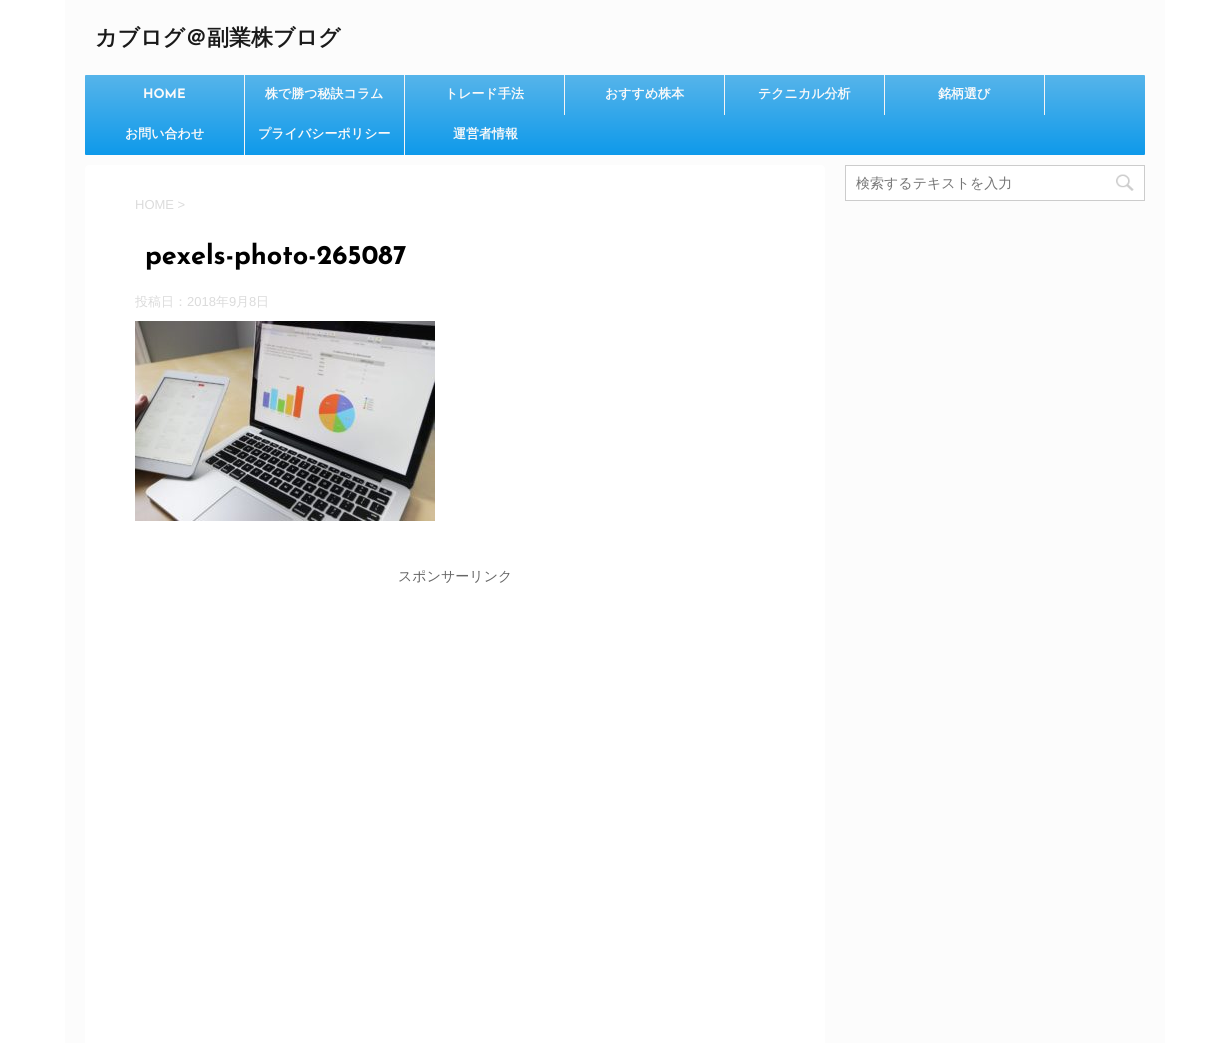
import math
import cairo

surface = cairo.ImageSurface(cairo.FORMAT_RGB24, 1230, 1043)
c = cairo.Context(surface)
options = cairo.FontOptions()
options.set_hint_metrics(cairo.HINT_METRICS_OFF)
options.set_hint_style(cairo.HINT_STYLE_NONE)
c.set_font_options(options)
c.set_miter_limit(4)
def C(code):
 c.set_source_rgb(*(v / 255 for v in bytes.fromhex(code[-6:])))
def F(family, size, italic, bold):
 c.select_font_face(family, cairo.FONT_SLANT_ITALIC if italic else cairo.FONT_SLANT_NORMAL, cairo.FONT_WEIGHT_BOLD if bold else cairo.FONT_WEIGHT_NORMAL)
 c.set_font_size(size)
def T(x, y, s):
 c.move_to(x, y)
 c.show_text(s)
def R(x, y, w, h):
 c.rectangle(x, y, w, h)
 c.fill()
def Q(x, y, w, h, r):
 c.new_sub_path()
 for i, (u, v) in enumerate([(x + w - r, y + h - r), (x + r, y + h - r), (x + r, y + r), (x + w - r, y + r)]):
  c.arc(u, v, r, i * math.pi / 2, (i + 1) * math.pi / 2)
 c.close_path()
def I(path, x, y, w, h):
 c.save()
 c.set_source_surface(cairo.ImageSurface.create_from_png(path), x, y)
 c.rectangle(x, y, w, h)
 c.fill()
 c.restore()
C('ffffff')
c.paint()
C('fcfcfc')
R(65,0,1100,1043)
F('WenQuanYi Zen Hei',22,0,1)
C('1a1a1a')
T(95,45,'カブログ＠副業株ブログ')
gradient = cairo.LinearGradient(615,75,615,155)
gradient.add_color_stop_rgba(0,0.337,0.706,0.918,1)
gradient.add_color_stop_rgba(1,0.055,0.6,0.918,1)
c.set_source(gradient)
Q(85,75,1060,80,1)
c.fill()
C('f4f4f4')
R(244,75,1,80)
F('Josefin Sans',13,0,1)
C('f9f9f9')
T(143,98,'HOME')
C('f4f4f4')
R(404,75,1,80)
F('WenQuanYi Zen Hei',13,0,1)
C('f9f9f9')
T(265,98,'株で勝つ秘訣コラム')
C('f4f4f4')
R(564,75,1,40)
C('f9f9f9')
T(445,98,'トレード手法')
C('f4f4f4')
R(724,75,1,40)
C('f9f9f9')
T(605,98,'おすすめ株本')
C('f4f4f4')
R(884,75,1,40)
C('f9f9f9')
T(758,98,'テクニカル分析')
C('f4f4f4')
R(1044,75,1,40)
C('f9f9f9')
T(938,98,'銘柄選び')
T(125,138,'お問い合わせ')
T(258,138,'プライバシーポリシー')
T(453,138,'運営者情報')
c.rectangle(845.5,165.5,299,35)
C('cccccc')
c.set_line_width(1)
c.stroke()
C('ffffff')
R(846,166,298,34)
F('WenQuanYi Zen Hei Medium',14,0,0)
C('757575')
T(856,188,'検索するテキストを入力')
I('1.png',1116,174,18,17)
C('ffffff')
Q(85,165,740,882,4)
c.fill()
F('Liberation Sans',13,0,0)
C('dbdbdb')
T(135,209,'HOME >')
F('Josefin Sans',27,0,1)
C('000000')
T(145,264,'pexels-photo-265087')
F('WenQuanYi Zen Hei Medium',13,0,0)
C('dbdbdb')
T(135,306,'投稿日：')
F('Liberation Sans',13,0,0)
T(187,306,'2018')
F('WenQuanYi Zen Hei Medium',13,0,0)
T(216,306,'年')
F('Liberation Sans',13,0,0)
T(229,306,'9')
F('WenQuanYi Zen Hei Medium',13,0,0)
T(236,306,'月')
F('Liberation Sans',13,0,0)
T(249,306,'8')
F('WenQuanYi Zen Hei Medium',13,0,0)
T(256,306,'日')
I('2.png',135,321,300,200)
F('WenQuanYi Zen Hei Medium',14,0,0)
C('666666')
T(398,581,'スポンサーリンク')
surface.write_to_png('o.png')
